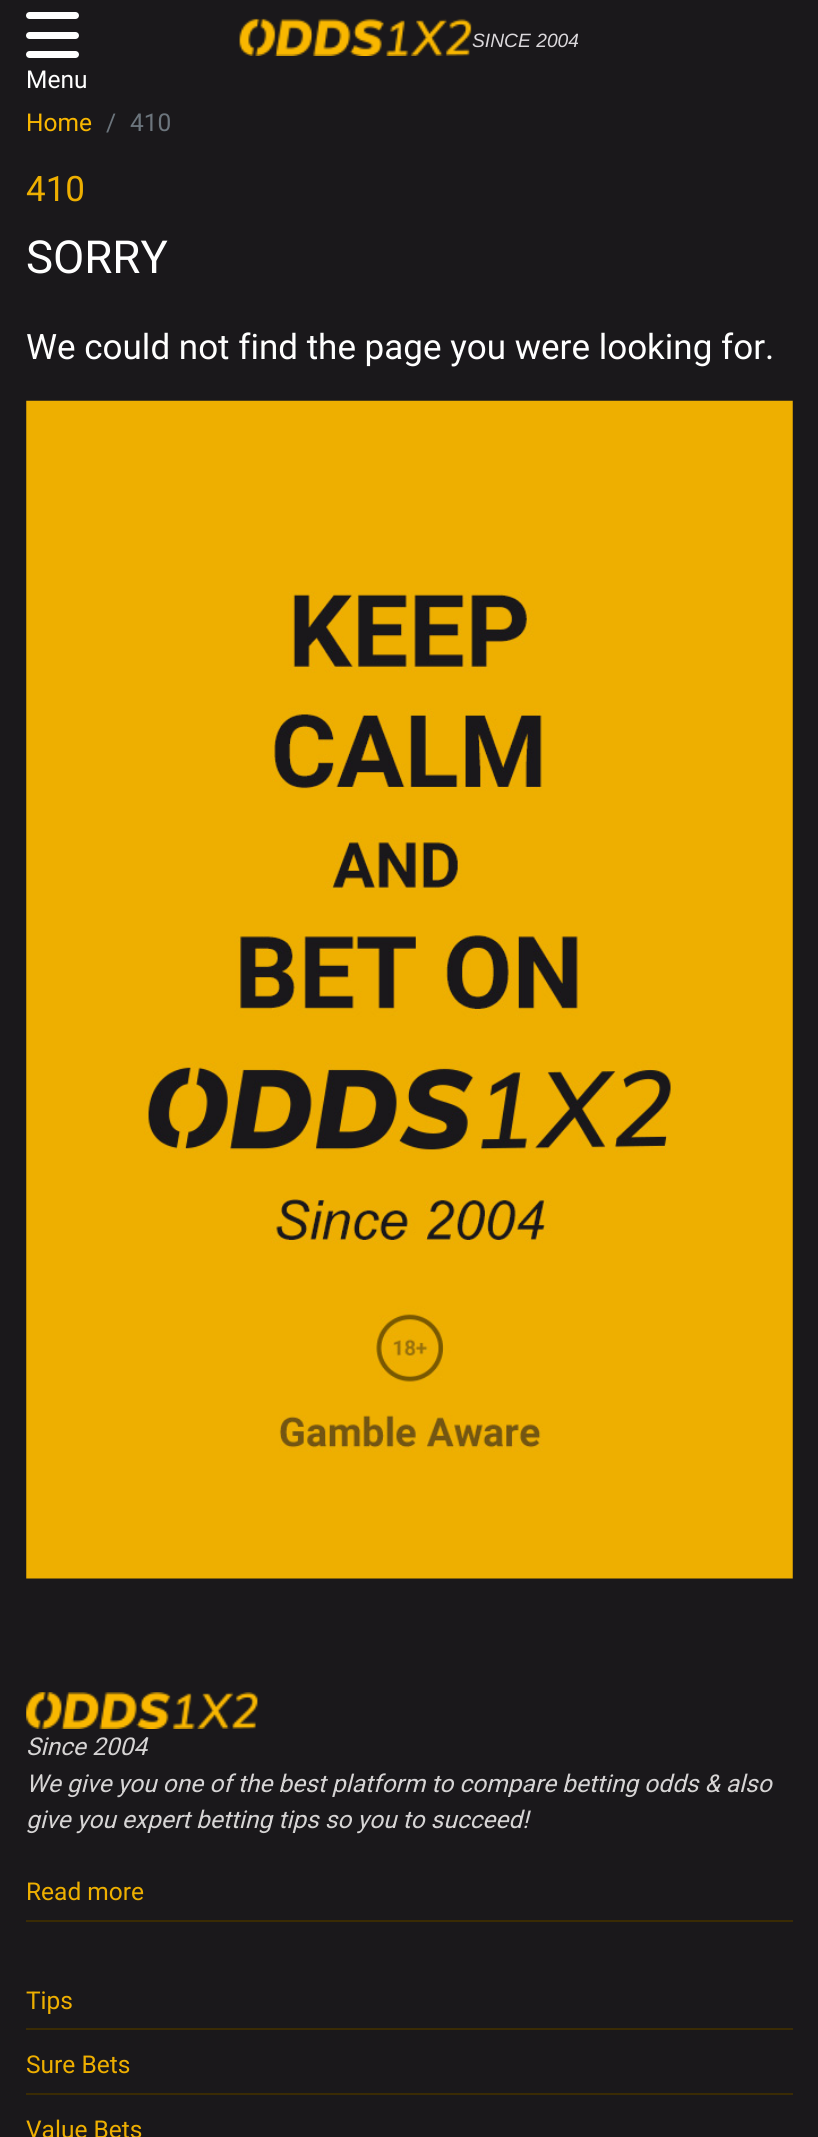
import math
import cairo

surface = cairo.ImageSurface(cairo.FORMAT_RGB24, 818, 2137)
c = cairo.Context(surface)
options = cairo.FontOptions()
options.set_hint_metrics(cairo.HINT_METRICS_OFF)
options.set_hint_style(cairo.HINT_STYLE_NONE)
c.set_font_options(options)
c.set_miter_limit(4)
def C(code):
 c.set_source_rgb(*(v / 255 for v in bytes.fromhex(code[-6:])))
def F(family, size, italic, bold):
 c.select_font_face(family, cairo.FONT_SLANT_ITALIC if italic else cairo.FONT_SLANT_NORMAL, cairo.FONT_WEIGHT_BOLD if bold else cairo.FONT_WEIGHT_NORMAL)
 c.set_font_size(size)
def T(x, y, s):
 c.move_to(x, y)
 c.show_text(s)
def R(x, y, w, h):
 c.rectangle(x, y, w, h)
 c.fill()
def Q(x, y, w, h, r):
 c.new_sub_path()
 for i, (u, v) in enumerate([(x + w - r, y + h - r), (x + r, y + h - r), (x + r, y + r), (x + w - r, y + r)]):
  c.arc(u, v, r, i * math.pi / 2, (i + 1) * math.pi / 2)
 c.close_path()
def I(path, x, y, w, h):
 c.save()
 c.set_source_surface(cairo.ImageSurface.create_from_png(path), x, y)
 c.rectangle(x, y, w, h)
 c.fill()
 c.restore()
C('1a181b')
c.paint()
I('1.png',239,18,233,38)
F('Liberation Sans',19.25,1,0)
C('dbd8dc')
T(472,47,'SINCE 2004')
C('ffffff')
Q(26,12,53,7,3.5)
c.fill()
Q(26,32,53,7,3.5)
c.fill()
Q(26,51,53,7,3.5)
c.fill()
F('Roboto',24.5,0,0)
T(26,88,'Menu')
C('f9b700')
T(26,131,'Home')
C('6c757d')
T(106,131,'/')
T(130,131,'410')
F('Roboto',35,0,0)
C('eeaf00')
T(26,201,'410')
F('Roboto',45.5,0,0)
C('ffffff')
T(26,273,'SORRY')
F('Roboto',35,0,0)
T(26,359,'We could not find the page you were looking for.')
I('2.png',26,400,767,1179)
I('3.png',26,1692,232,37)
F('Roboto',24.5,1,0)
C('d6d4d4')
T(26,1755,'Since 2004')
T(26,1792,'We give you one of the best platform to compare betting odds & also')
T(26,1828,'give you expert betting tips so you to succeed!')
C('3a2b04')
R(26,1920,767,2)
F('Roboto',24.5,0,0)
C('eeaf00')
T(26,1900,'Read more')
C('3a2b04')
R(26,2028,767,2)
C('eeaf00')
T(26,2009,'Tips')
C('3a2b04')
R(26,2093,767,2)
C('eeaf00')
T(26,2073,'Sure Bets')
T(26,2138,'Value Bets')
surface.write_to_png('o.png')
